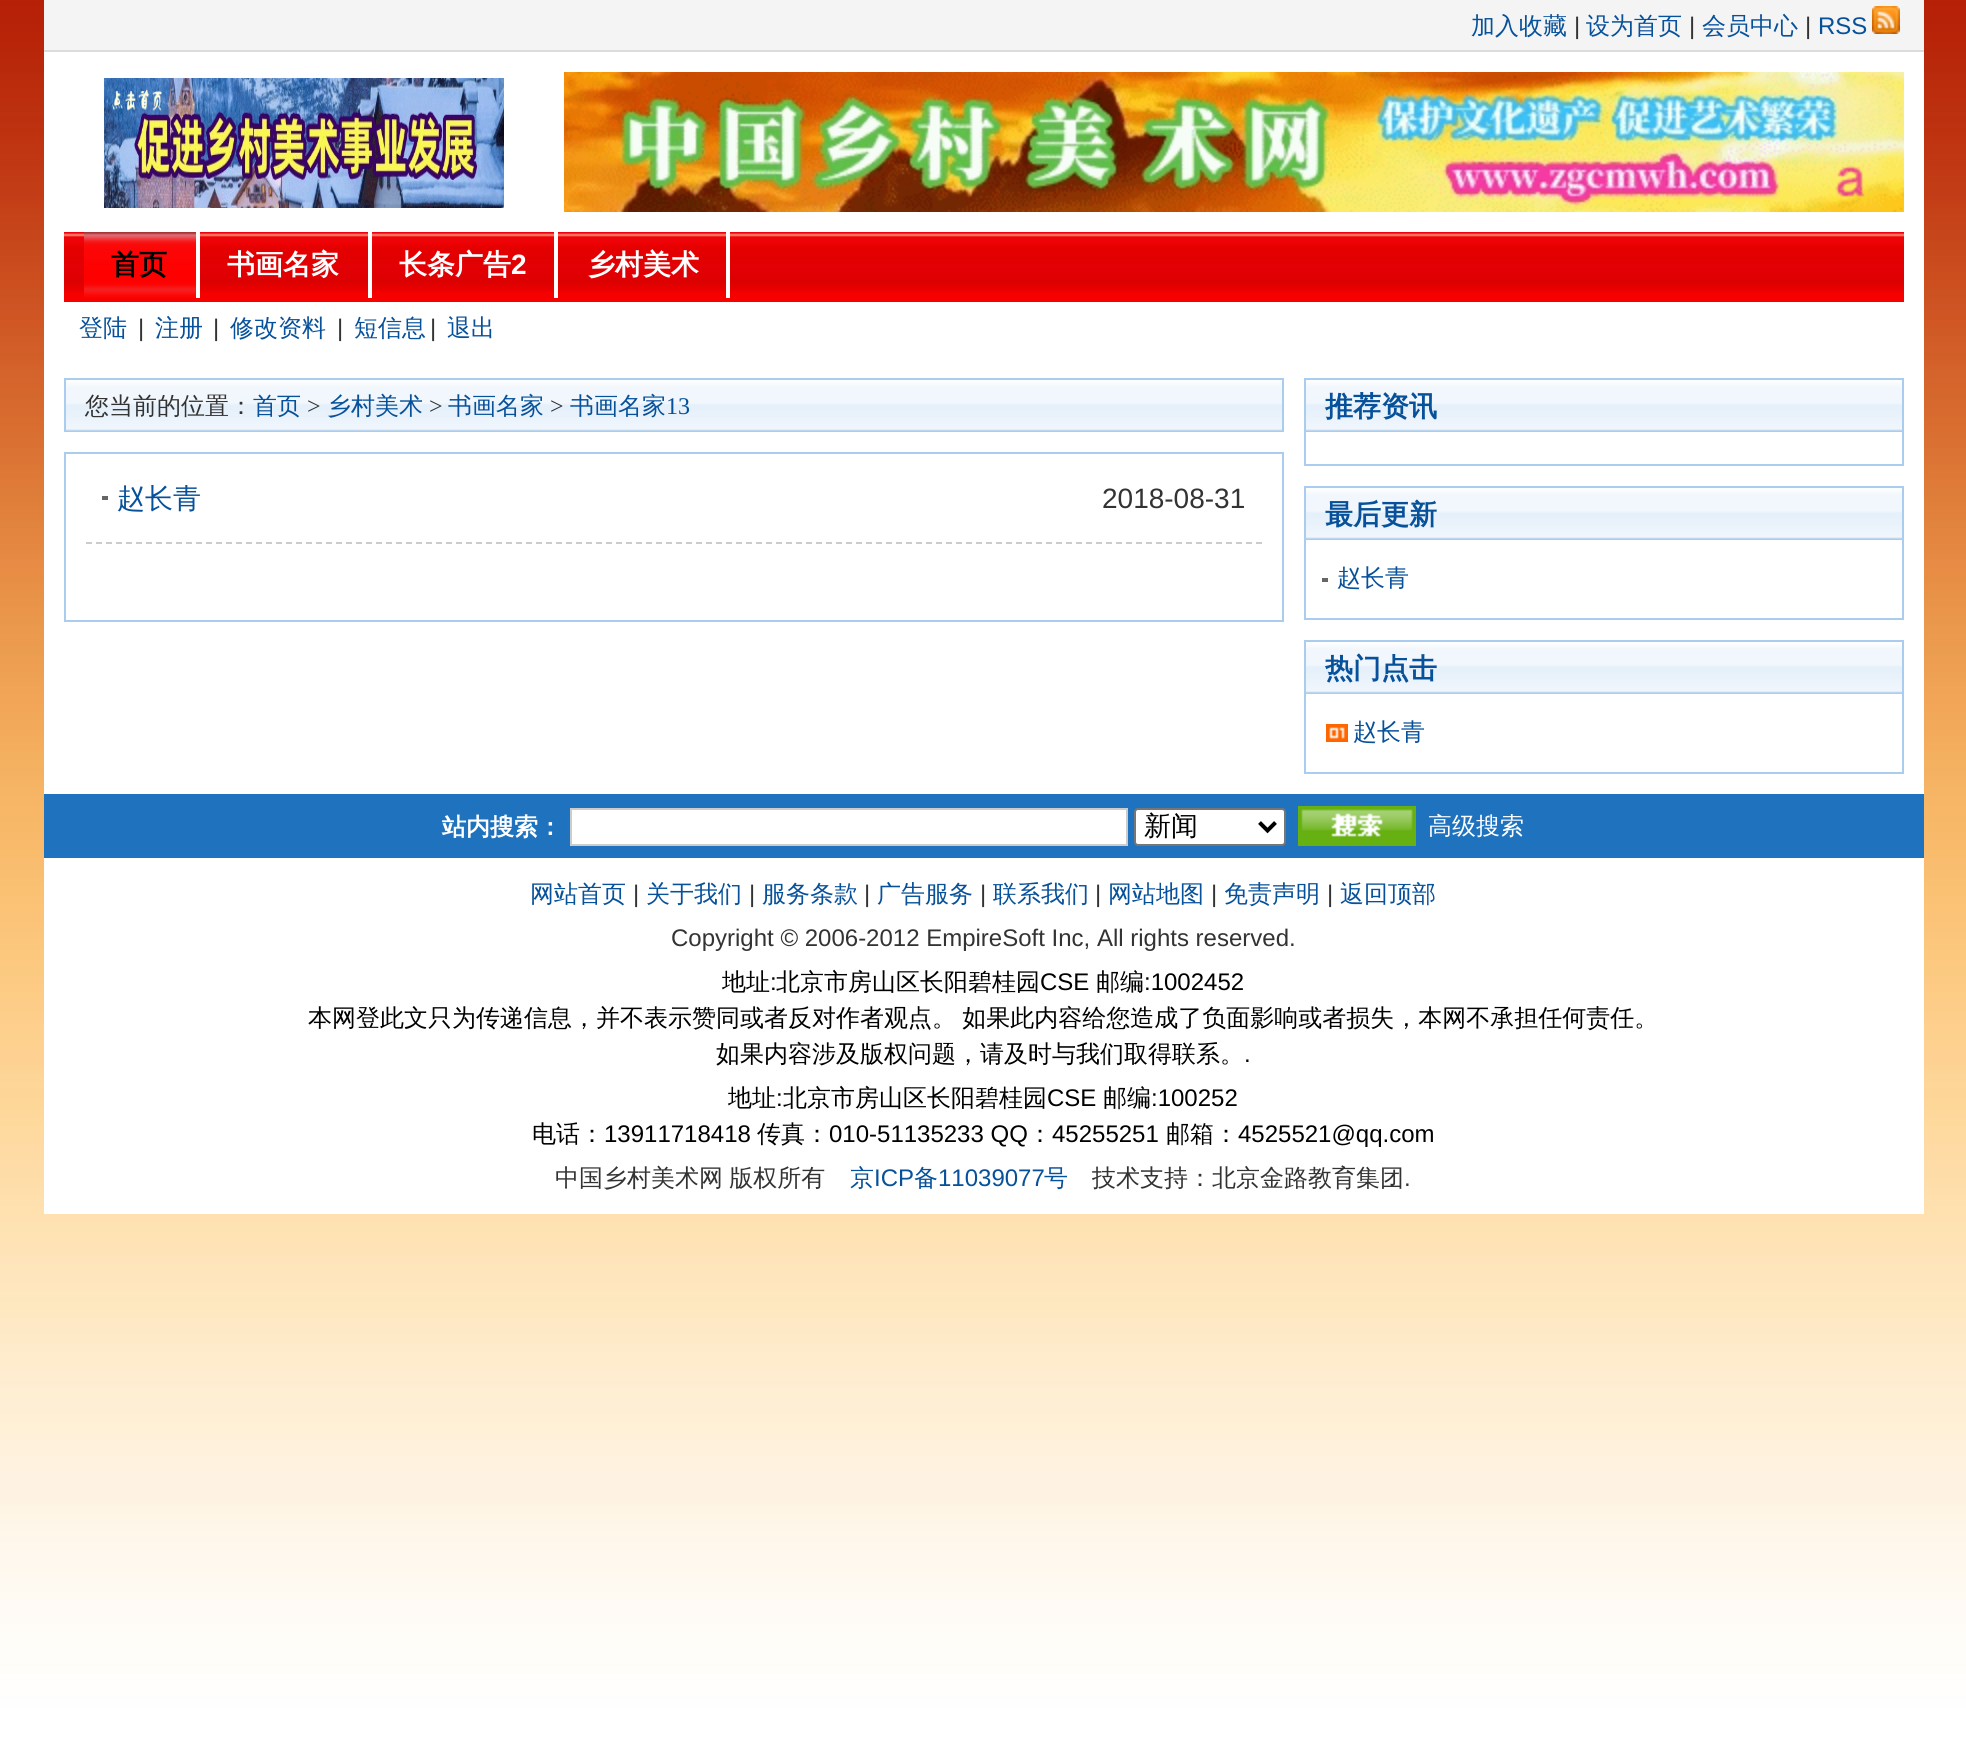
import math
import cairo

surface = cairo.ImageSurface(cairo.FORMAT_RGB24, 1966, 1763)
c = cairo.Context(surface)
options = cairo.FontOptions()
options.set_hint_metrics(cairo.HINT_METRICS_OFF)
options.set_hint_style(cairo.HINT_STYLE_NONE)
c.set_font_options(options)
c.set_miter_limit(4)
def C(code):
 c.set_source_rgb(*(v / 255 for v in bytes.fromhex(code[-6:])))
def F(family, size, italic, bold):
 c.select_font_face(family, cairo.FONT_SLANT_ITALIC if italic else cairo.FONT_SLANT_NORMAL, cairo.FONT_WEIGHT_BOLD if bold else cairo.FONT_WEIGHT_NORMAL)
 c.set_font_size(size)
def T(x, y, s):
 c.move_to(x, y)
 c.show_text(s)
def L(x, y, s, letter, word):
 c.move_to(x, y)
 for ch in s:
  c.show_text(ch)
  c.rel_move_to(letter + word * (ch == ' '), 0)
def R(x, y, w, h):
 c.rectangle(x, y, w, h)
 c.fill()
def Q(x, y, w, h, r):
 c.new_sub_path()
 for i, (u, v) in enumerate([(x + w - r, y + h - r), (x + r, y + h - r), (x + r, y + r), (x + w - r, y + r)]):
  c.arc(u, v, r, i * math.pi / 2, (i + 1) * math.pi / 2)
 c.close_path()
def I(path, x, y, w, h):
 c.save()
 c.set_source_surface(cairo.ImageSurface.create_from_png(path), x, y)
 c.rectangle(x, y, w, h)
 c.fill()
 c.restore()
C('ffffff')
c.paint()
I('1.png',0,0,1966,1763)
C('ffffff')
R(44,52,1880,1162)
C('dcdcdc')
R(44,50,1880,2)
C('f4f4f4')
R(44,0,1880,50)
F('WenQuanYi Zen Hei Medium',24,0,0)
C('07519a')
T(1471,34,'加入收藏')
F('Liberation Sans',24,0,0)
C('333333')
T(1574,34,'|')
F('WenQuanYi Zen Hei Medium',24,0,0)
C('07519a')
T(1586,34,'设为首页')
F('Liberation Sans',24,0,0)
C('333333')
T(1689,34,'|')
F('WenQuanYi Zen Hei Medium',24,0,0)
C('07519a')
T(1702,34,'会员中心')
F('Liberation Sans',24,0,0)
C('333333')
T(1805,34,'|')
C('07519a')
T(1818,34,'RSS')
I('2.png',1872,6,28,28)
I('3.png',104,78,400,130)
I('4.png',564,72,1340,140)
I('5.png',64,232,1840,70)
C('fefefe')
R(196,232,4,66)
I('6.png',84,232,112,66)
F('WenQuanYi Zen Hei',28,0,1)
C('000000')
T(111,274,'首页')
C('fefefe')
R(368,232,4,66)
C('ffffff')
T(227,274,'书画名家')
C('fefefe')
R(554,232,4,66)
C('ffffff')
T(399,274,'长条广告')
F('Liberation Sans',28,0,1)
T(511,274,'2')
C('fefefe')
R(726,232,4,66)
F('WenQuanYi Zen Hei',28,0,1)
C('ffffff')
T(587,274,'乡村美术')
F('WenQuanYi Zen Hei Medium',24,0,0)
C('07519a')
T(79,336,'登陆')
F('Liberation Sans',24,0,0)
C('333333')
T(138,336,'|')
F('WenQuanYi Zen Hei Medium',24,0,0)
C('07519a')
T(155,336,'注册')
F('Liberation Sans',24,0,0)
C('333333')
T(213,336,'|')
F('WenQuanYi Zen Hei Medium',24,0,0)
C('07519a')
T(230,336,'修改资料')
F('Liberation Sans',24,0,0)
C('333333')
T(337,336,'|')
F('WenQuanYi Zen Hei Medium',24,0,0)
C('07519a')
T(354,336,'短信息')
F('Liberation Sans',24,0,0)
C('333333')
T(430,336,'|')
F('WenQuanYi Zen Hei Medium',24,0,0)
C('07519a')
T(447,336,'退出')
I('7.png',66,380,1216,52)
C('aaccee')
R(64,378,1220,2)
R(1282,378,2,54)
R(64,378,2,54)
C('333333')
T(85,414,'您当前的位置：')
C('07519a')
T(253,414,'首页')
F('Liberation Serif',24,0,0)
C('333333')
T(307,414,'>')
F('WenQuanYi Zen Hei Medium',24,0,0)
C('07519a')
T(327,414,'乡村美术')
F('Liberation Serif',24,0,0)
C('333333')
T(429,414,'>')
F('WenQuanYi Zen Hei Medium',24,0,0)
C('07519a')
T(448,414,'书画名家')
F('Liberation Serif',24,0,0)
C('333333')
T(550,414,'>')
F('WenQuanYi Zen Hei Medium',24,0,0)
C('07519a')
T(570,414,'书画名家')
F('Liberation Serif',24,0,0)
T(666,414,'13')
c.rectangle(65,453,1218,168)
C('aaccee')
c.stroke()
c.new_path()
c.move_to(86,543)
c.line_to(1262,543)
C('cccccc')
c.set_dash([6,4])
c.stroke()
C('666666')
R(102,496,6,4)
F('WenQuanYi Zen Hei Medium',28,0,0)
C('07519a')
T(117,508,'赵长青')
F('Liberation Sans',28,0,0)
C('333333')
T(1102,508,'2018-08-31')
I('8.png',1306,380,596,52)
C('aaccee')
R(1304,378,600,2)
R(1902,378,2,88)
R(1304,378,2,54)
F('WenQuanYi Zen Hei',28,0,1)
C('07519a')
T(1325,416,'推荐资讯')
C('aaccee')
R(1304,464,600,2)
R(1304,432,2,34)
I('8.png',1306,488,596,52)
R(1304,486,600,2)
R(1902,486,2,134)
R(1304,486,2,54)
C('07519a')
T(1325,524,'最后更新')
C('aaccee')
R(1304,618,600,2)
R(1304,540,2,80)
C('666666')
R(1322,578,6,4)
F('WenQuanYi Zen Hei Medium',24,0,0)
C('07519a')
T(1337,586,'赵长青')
I('8.png',1306,642,596,52)
C('aaccee')
R(1304,640,600,2)
R(1902,640,2,134)
R(1304,640,2,54)
F('WenQuanYi Zen Hei',28,0,1)
C('07519a')
T(1325,678,'热门点击')
C('aaccee')
R(1304,772,600,2)
R(1304,694,2,80)
I('9.png',1326,724,22,18)
F('WenQuanYi Zen Hei Medium',24,0,0)
C('07519a')
T(1353,740,'赵长青')
C('1f73be')
R(44,794,1880,64)
F('WenQuanYi Zen Hei',24,0,1)
C('ffffff')
T(442,835,'站内搜索：')
c.rectangle(571,809,556,36)
c.fill_preserve()
C('cccccc')
c.set_dash([])
c.stroke()
C('ffffff')
Q(1135,809,150,36,3)
c.fill_preserve()
C('767676')
c.stroke()
c.new_path()
c.move_to(1259.5,822.5)
c.line_to(1267.5,830.5)
c.line_to(1275.5,822.5)
C('000000')
c.set_line_width(4)
c.stroke()
F('WenQuanYi Zen Hei Medium',27,0,0)
T(1144,835,'新闻')
I('10.png',1298,806,118,40)
F('WenQuanYi Zen Hei Medium',24,0,0)
C('ffffff')
T(1428,834,'高级搜索')
C('07519a')
T(530,902,'网站首页')
F('Liberation Sans',24,0,0)
C('333333')
T(633,902,'|')
F('WenQuanYi Zen Hei Medium',24,0,0)
C('07519a')
T(646,902,'关于我们')
F('Liberation Sans',24,0,0)
C('333333')
T(749,902,'|')
F('WenQuanYi Zen Hei Medium',24,0,0)
C('07519a')
T(762,902,'服务条款')
F('Liberation Sans',24,0,0)
C('333333')
T(864,902,'|')
F('WenQuanYi Zen Hei Medium',24,0,0)
C('07519a')
T(877,902,'广告服务')
F('Liberation Sans',24,0,0)
C('333333')
T(980,902,'|')
F('WenQuanYi Zen Hei Medium',24,0,0)
C('07519a')
T(993,902,'联系我们')
F('Liberation Sans',24,0,0)
C('333333')
T(1095,902,'|')
F('WenQuanYi Zen Hei Medium',24,0,0)
C('07519a')
T(1108,902,'网站地图')
F('Liberation Sans',24,0,0)
C('333333')
T(1211,902,'|')
F('WenQuanYi Zen Hei Medium',24,0,0)
C('07519a')
T(1224,902,'免责声明')
F('Liberation Sans',24,0,0)
C('333333')
T(1327,902,'|')
F('WenQuanYi Zen Hei Medium',24,0,0)
C('07519a')
T(1340,902,'返回顶部')
F('Liberation Sans',24,0,0)
C('333333')
T(671,946,'Copyright © 2006-2012 EmpireSoft Inc, All rights reserved.')
F('WenQuanYi Zen Hei Medium',24,0,0)
C('000000')
T(722,990,'地址')
F('Liberation Sans',24,0,0)
T(770,990,':')
F('WenQuanYi Zen Hei Medium',24,0,0)
T(776,990,'北京市房山区长阳碧桂园')
F('Liberation Sans',24,0,0)
T(1040,990,'CSE')
F('WenQuanYi Zen Hei Medium',24,0,0)
T(1096,990,'邮编')
F('Liberation Sans',24,0,0)
T(1144,990,':1002452')
F('WenQuanYi Zen Hei Medium',24,0,0)
L(308,1026,'本网登此文只为传递信息，并不表示赞同或者反对作者观点。 如果此内容给您造成了负面影响或者损失，本网不承担任何责任。',0,-1)
T(716,1062,'如果内容涉及版权问题，请及时与我们取得联系。')
F('Liberation Sans',24,0,0)
T(1244,1062,'.')
F('WenQuanYi Zen Hei Medium',24,0,0)
T(728,1106,'地址')
F('Liberation Sans',24,0,0)
T(776,1106,':')
F('WenQuanYi Zen Hei Medium',24,0,0)
T(783,1106,'北京市房山区长阳碧桂园')
F('Liberation Sans',24,0,0)
T(1047,1106,'CSE')
F('WenQuanYi Zen Hei Medium',24,0,0)
T(1103,1106,'邮编')
F('Liberation Sans',24,0,0)
T(1151,1106,':100252')
F('WenQuanYi Zen Hei Medium',24,0,0)
T(532,1142,'电话：')
F('Liberation Sans',24,0,0)
T(604,1142,'13911718418')
F('WenQuanYi Zen Hei Medium',24,0,0)
T(757,1142,'传真：')
F('Liberation Sans',24,0,0)
T(829,1142,'010-51135233 QQ')
F('WenQuanYi Zen Hei Medium',24,0,0)
T(1028,1142,'：')
F('Liberation Sans',24,0,0)
T(1052,1142,'45255251')
F('WenQuanYi Zen Hei Medium',24,0,0)
T(1166,1142,'邮箱：')
F('Liberation Sans',24,0,0)
T(1238,1142,'4525521@qq.com')
F('WenQuanYi Zen Hei Medium',24,0,0)
C('333333')
L(555,1186,'中国乡村美术网 版权所有',0,-1)
C('07519a')
T(850,1186,'京')
F('Liberation Sans',24,0,0)
T(874,1186,'ICP')
F('WenQuanYi Zen Hei Medium',24,0,0)
T(914,1186,'备')
F('Liberation Sans',24,0,0)
T(938,1186,'11039077')
F('WenQuanYi Zen Hei Medium',24,0,0)
T(1044,1186,'号')
C('333333')
T(1092,1186,'技术支持：北京金路教育集团')
F('Liberation Sans',24,0,0)
T(1404,1186,'.')
surface.write_to_png('o.png')
